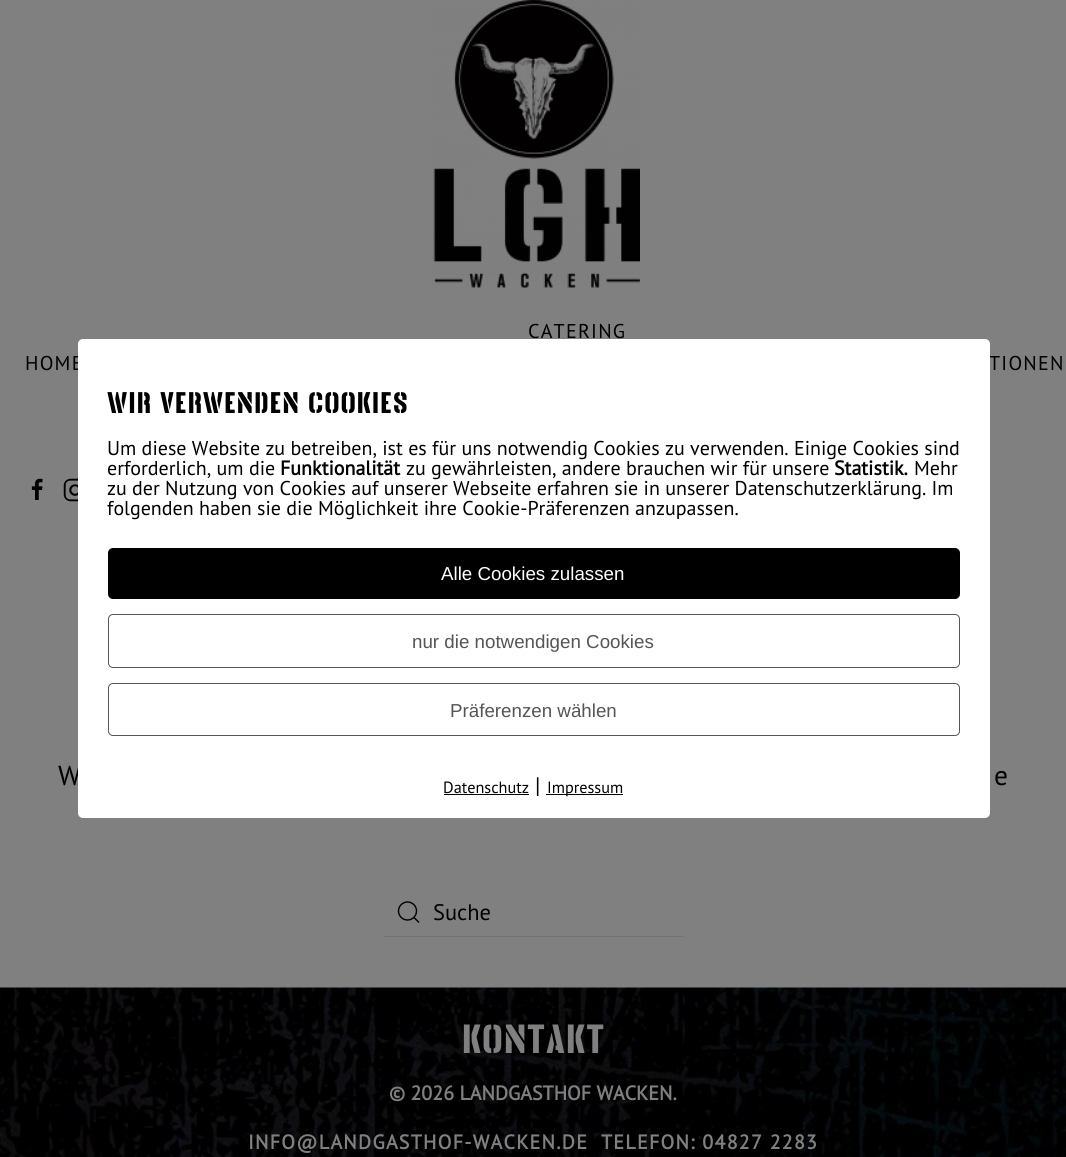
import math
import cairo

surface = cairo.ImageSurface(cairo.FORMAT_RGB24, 1066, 1157)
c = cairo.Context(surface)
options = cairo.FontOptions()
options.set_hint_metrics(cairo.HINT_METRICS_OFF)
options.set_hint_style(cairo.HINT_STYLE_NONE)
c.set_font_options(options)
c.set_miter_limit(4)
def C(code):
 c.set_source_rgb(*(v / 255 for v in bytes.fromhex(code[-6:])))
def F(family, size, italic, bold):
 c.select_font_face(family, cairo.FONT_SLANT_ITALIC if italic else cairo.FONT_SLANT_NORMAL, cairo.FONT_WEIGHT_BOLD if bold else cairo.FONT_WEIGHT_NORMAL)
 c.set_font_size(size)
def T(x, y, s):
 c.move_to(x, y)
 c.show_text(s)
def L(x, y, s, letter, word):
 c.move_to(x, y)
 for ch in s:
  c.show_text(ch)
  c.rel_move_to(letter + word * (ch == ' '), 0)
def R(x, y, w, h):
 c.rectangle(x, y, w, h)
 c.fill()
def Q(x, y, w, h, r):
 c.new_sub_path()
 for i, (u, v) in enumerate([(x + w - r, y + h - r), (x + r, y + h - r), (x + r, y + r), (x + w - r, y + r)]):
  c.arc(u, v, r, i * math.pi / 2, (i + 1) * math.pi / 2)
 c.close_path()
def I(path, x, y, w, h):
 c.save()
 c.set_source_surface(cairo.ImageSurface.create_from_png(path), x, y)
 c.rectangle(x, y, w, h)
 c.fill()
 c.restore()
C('808080')
c.paint()
I('1.png',433,0,207,288)
F('PT Sans',20,0,0)
C('000000')
L(528,338,'CATERING',1.25,0)
L(25,370,'HOME',1.25,0)
L(989,370,'TIONEN',1.25,0)
I('2.png',31,478,12,22)
I('3.png',63,478,15,24)
F('PT Sans',27.5,0,0)
T(58,785,'W')
T(994,785,'e')
c.new_path()
c.arc(407.5,911,9,0,2 * math.pi)
c.set_line_width(1.4)
c.stroke()
c.new_path()
c.move_to(414,917.5)
c.line_to(419,922.5)
c.close_path()
c.stroke()
C('737374')
R(384,936,300,1)
F('PT Sans',22.5,0,0)
C('000000')
T(433,920,'Suche')
I('4.png',0,987,1066,170)
F('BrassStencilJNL',37.5,0,0)
C('808080')
L(462,1053,'KONTAKT',1.25,0)
F('PT Sans',20,0,1)
T(389,1100,'© 2026 LANDGASTHOF WACKEN.')
L(248,1149,'INFO@LANDGASTHOF-WACKEN.DE',1.25,0)
L(601,1149,'TELEFON: 04827 2283',1.25,0)
C('ffffff')
Q(78,339,912,479,5)
c.fill()
F('BrassStencilJNL',27.5,0,0)
C('000000')
L(107,413,'WIR VERWENDEN COOKIES',1.25,0)
F('PT Sans',20,0,0)
T(107,455,'Um diese Website zu betreiben, ist es für uns notwendig Cookies zu verwenden. Einige Cookies sind')
T(107,475,'erforderlich, um die')
F('PT Sans',20,0,1)
T(280,475,'Funktionalität')
F('PT Sans',20,0,0)
T(406,475,'zu gewährleisten, andere brauchen wir für unsere')
F('PT Sans',20,0,1)
T(834,475,'Statistik.')
F('PT Sans',20,0,0)
T(914,475,'Mehr')
T(107,495,'zu der Nutzung von Cookies auf unserer Webseite erfahren sie in unserer Datenschutzerklärung. Im')
T(107,515,'folgenden haben sie die Möglichkeit ihre Cookie-Präferenzen anzupassen.')
Q(108,548,852,51,5)
c.fill()
F('Liberation Sans',18.75,0,0)
C('ffffff')
T(441,580,'Alle Cookies zulassen')
Q(108.5,614.5,851,53,4.5)
C('555555')
c.set_line_width(1)
c.stroke()
T(412,648,'nur die notwendigen Cookies')
Q(108.5,683.5,851,52,4.5)
c.stroke()
T(450,717,'Präferenzen wählen')
F('PT Sans',16.25,0,0)
C('000000')
T(443,793,'Datenschutz')
R(444,794,85,1)
F('PT Sans',22.5,0,0)
T(535,793,'|')
R(546,794,77,1)
F('PT Sans',16.25,0,0)
T(547,793,'Impressum')
surface.write_to_png('o.png')
